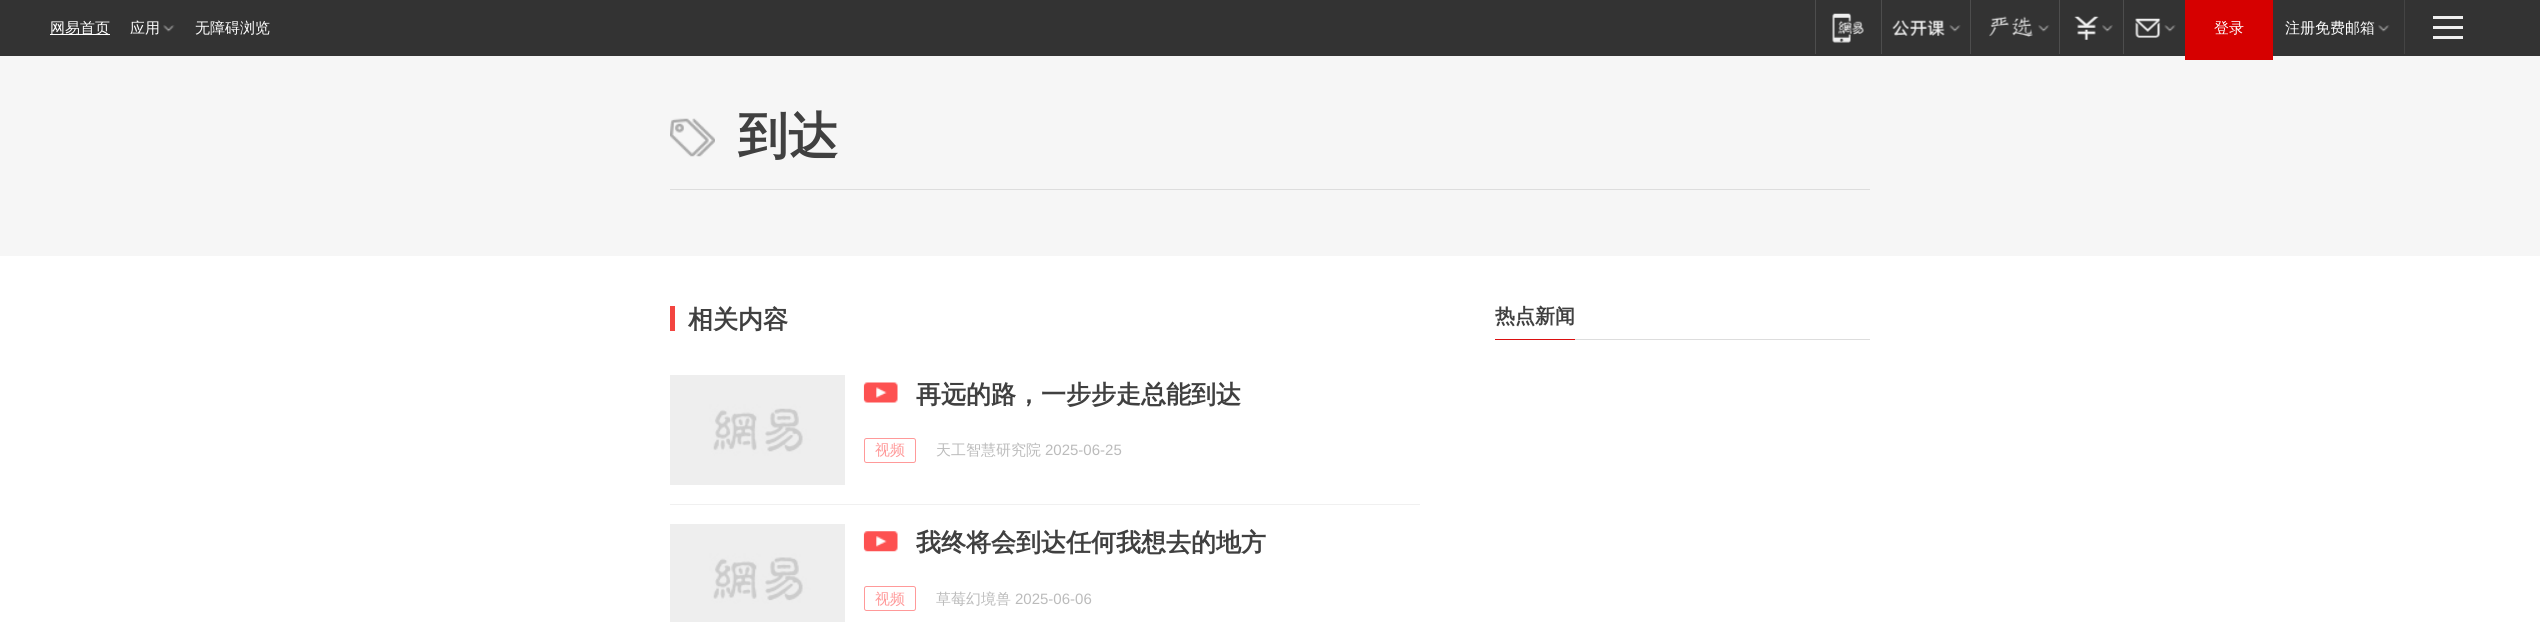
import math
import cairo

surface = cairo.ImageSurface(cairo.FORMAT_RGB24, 2540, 622)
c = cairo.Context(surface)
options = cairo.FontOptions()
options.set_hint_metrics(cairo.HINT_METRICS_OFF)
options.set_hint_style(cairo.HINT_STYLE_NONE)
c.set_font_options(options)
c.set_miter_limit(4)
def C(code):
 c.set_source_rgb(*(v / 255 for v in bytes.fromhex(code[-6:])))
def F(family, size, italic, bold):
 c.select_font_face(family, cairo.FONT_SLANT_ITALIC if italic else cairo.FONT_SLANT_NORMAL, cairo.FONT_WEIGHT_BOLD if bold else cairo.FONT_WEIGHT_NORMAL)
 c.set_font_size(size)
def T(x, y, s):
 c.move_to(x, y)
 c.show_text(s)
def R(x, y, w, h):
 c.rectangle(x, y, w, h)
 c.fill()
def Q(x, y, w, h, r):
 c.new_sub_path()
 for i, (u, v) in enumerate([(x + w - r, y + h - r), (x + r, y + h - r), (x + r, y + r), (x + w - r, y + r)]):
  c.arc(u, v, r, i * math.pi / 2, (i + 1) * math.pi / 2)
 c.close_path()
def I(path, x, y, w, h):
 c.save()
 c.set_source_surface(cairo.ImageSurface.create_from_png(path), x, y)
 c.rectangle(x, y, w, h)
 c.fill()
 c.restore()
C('ffffff')
c.paint()
C('333333')
R(0,0,2540,56)
C('ffffff')
R(50,34,60,1)
F('WenQuanYi Zen Hei Medium',15,0,0)
T(50,33,'网易首页')
T(130,33,'应用')
I('1.png',163,25,12,7)
T(195,33,'无障碍浏览')
C('4d4d4d')
R(1815,0,1,54)
I('2.png',1832,13,32,30)
R(1881,0,1,54)
I('3.png',1892,20,53,16)
I('4.png',1949,25,12,7)
R(1970,0,1,54)
I('5.png',1989,16,44,21)
I('6.png',2038,25,12,7)
R(2059,0,1,54)
I('7.png',2074,16,25,24)
I('8.png',2102,25,11,7)
R(2123,0,1,54)
I('9.png',2135,18,26,20)
I('4.png',2164,25,12,7)
C('f6f6f6')
R(0,56,2540,200)
C('d60000')
R(2185,0,88,60)
C('ffffff')
T(2214,33,'登录')
T(2285,33,'注册免费邮箱')
I('1.png',2378,25,12,7)
C('444444')
R(2404,0,1,54)
C('efefef')
R(2433,16,30,3)
R(2433,26,30,3)
R(2433,36,30,3)
I('10.png',670,118,45,39)
C('dddddd')
R(670,189,1200,1)
F('WenQuanYi Zen Hei',50,0,1)
C('404040')
T(738,153,'到达')
C('f34540')
R(670,306,5,25)
F('WenQuanYi Zen Hei',25,0,1)
C('404040')
T(688,328,'相关内容')
C('f0f0f0')
R(670,504,750,1)
I('11.png',670,375,175,110)
I('12.png',863,382,35,21)
C('404040')
T(916,403,'再远的路，一步步走总能到达')
Q(864.5,438.5,51,24,2)
C('ff9999')
c.set_line_width(1)
c.stroke()
F('WenQuanYi Zen Hei Medium',15,0,0)
T(875,455,'视频')
C('bbbbbb')
T(936,455,'天工智慧研究院')
F('Liberation Sans',15,0,0)
T(1045,455,'2025-06-25')
I('13.png',670,524,175,98)
I('14.png',863,531,35,21)
F('WenQuanYi Zen Hei',25,0,1)
C('404040')
T(916,551,'我终将会到达任何我想去的地方')
Q(864.5,586.5,51,24,2)
C('ff9999')
c.stroke()
F('WenQuanYi Zen Hei Medium',15,0,0)
T(875,604,'视频')
C('bbbbbb')
T(936,604,'草莓幻境兽')
F('Liberation Sans',15,0,0)
T(1015,604,'2025-06-06')
C('dddddd')
R(1575,339,295,1)
F('WenQuanYi Zen Hei',20,0,1)
C('404040')
T(1495,323,'热点新闻')
C('db1011')
R(1495,339,80,1)
surface.write_to_png('o.png')
